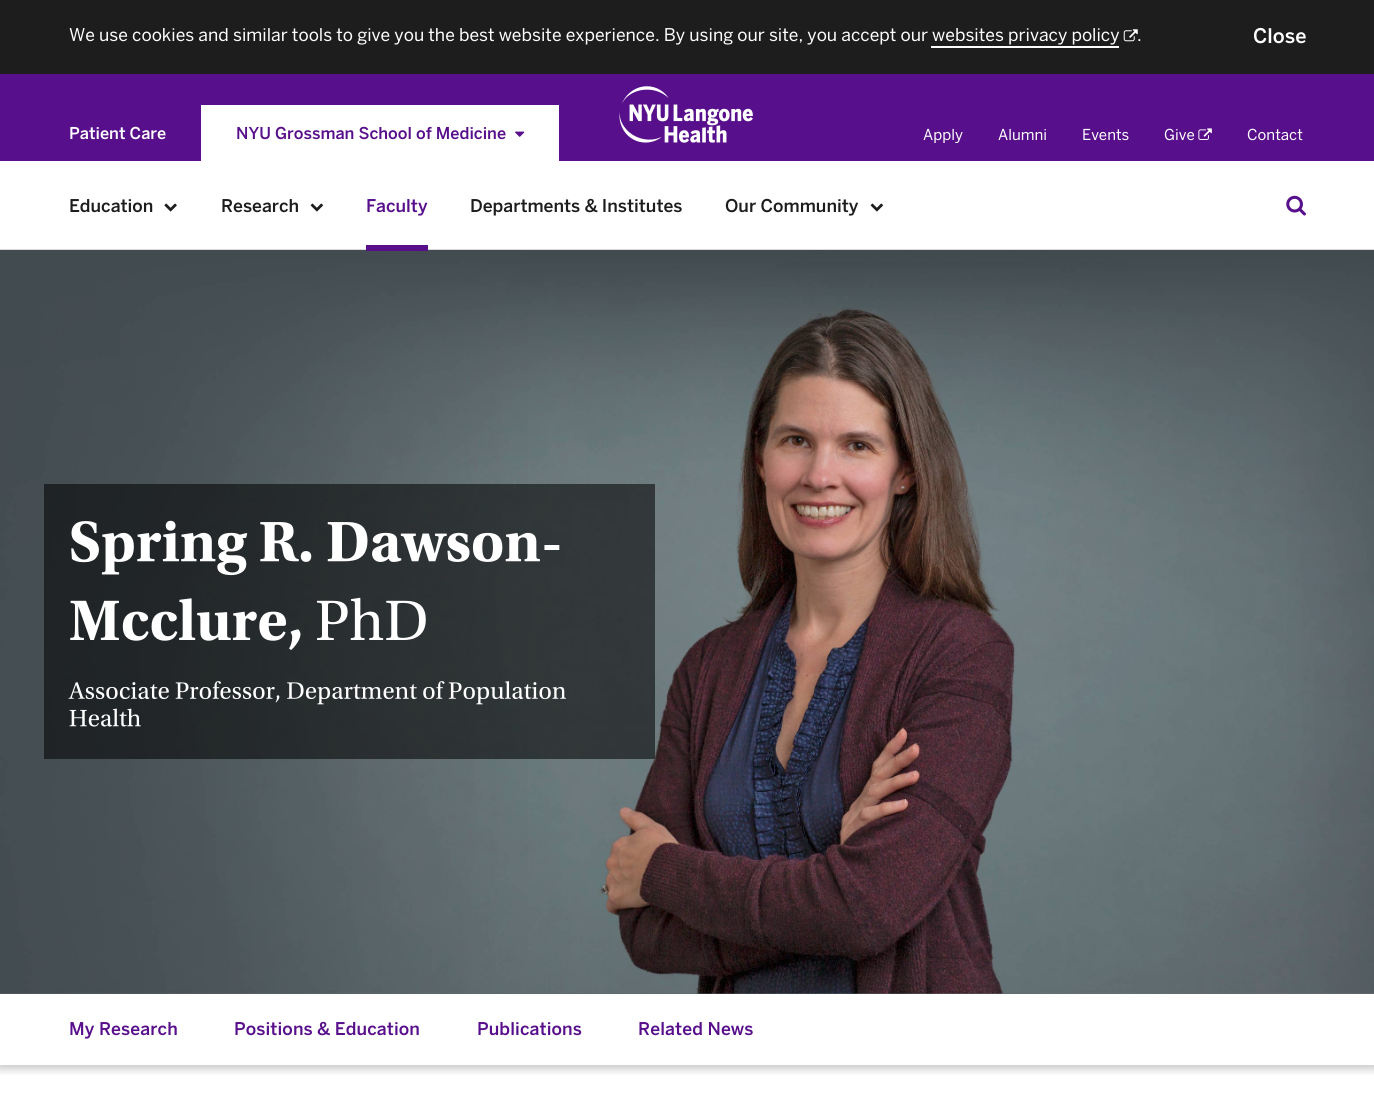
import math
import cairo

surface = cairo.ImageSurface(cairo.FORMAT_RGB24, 1374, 1096)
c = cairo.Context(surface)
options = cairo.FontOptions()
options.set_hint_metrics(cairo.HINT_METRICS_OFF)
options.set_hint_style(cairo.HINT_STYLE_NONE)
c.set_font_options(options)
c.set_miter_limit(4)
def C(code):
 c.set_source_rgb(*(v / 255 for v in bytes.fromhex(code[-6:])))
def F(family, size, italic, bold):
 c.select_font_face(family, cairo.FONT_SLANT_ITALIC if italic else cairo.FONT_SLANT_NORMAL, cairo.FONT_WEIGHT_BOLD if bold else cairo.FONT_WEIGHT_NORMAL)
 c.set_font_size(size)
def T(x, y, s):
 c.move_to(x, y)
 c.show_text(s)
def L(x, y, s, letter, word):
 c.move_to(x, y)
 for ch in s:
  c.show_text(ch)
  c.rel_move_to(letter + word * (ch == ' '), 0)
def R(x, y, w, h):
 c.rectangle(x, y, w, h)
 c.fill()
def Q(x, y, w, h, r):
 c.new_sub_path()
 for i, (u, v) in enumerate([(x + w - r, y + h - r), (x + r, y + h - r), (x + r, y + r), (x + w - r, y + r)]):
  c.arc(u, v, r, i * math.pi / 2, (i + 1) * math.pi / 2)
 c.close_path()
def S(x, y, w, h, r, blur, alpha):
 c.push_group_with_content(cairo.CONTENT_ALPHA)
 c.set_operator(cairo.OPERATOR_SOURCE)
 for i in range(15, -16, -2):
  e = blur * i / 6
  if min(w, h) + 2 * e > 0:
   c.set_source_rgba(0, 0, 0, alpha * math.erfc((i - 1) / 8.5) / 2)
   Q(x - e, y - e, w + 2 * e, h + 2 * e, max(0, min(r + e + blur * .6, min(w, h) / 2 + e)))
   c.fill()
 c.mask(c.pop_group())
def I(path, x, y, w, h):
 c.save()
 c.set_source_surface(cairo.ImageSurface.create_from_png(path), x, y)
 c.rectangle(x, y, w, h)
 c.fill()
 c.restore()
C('ffffff')
c.paint()
C('1d1d1d')
R(0,0,1374,74)
F('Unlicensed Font',17.5,0,0)
C('ffffff')
T(69,41,'We use cookies and similar tools to give you the best website experience. By using our site, you accept our websites privacy policy')
I('1.png',1123,29,15,13)
T(1137,41,'.')
c.new_path()
c.move_to(931,26)
c.line_to(931,48)
c.line_to(1119,48)
c.line_to(1119,26)
c.line_to(1119,46)
c.line_to(931,46)
c.close_path()
c.fill()
F('Unlicensed Font Medium',20,0,0)
T(1253,43,'Close')
C('580f8b')
R(0,74,1374,87)
F('Unlicensed Font Medium',16.25,0,0)
C('ffffff')
T(69,139,'Patient Care')
R(201,105,358,56)
C('580f8b')
T(236,139,'NYU Grossman School of Medicine')
I('2.png',515,131,10,6)
I('3.png',619,86,134,57)
F('Unlicensed Font',15,0,0)
C('ffffff')
T(923,140,'Apply')
T(998,140,'Alumni')
T(1082,140,'Events')
T(1164,140,'Give')
I('4.png',1198,128,14,12)
T(1247,140,'Contact')
C('dbdbda')
R(0,249,1374,1)
F('Unlicensed Font Medium',17.5,0,0)
C('1d1d1d')
T(69,212,'Education')
I('5.png',164,203,13,9)
T(221,212,'Research')
I('6.png',310,203,13,9)
C('580f8b')
T(366,212,'Faculty')
c.save()
c.rectangle(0,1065,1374,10)
c.clip()
C('000000')
S(-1,995,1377,74,0,4.5,.22)
c.restore()
C('363d45')
R(0,993,1374,1)
I('8.png',0,993,1374,1)
I('9.png',0,250,1374,744)
C('580f8b')
R(366,245,62,6)
C('1d1d1d')
T(470,212,'Departments & Institutes')
T(725,212,'Our Community')
I('6.png',870,203,13,9)
I('7.png',1286,195,20,21)
c.set_source_rgba(0,0,0,0.55)
R(44,484,611,275)
I('10.png',71,520,489,56)
I('11.png',70,598,231,52)
I('12.png',317,597,109,43)
I('13.png',68,681,498,24)
I('14.png',69,708,72,19)
F('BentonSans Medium',17.5,0,0)
C('580f8b')
L(69,1035,'My Research',.1,0)
L(234,1035,'Positions & Education',.1,0)
L(477,1035,'Publications',.1,0)
L(638,1035,'Related News',.1,0)
surface.write_to_png('o.png')
